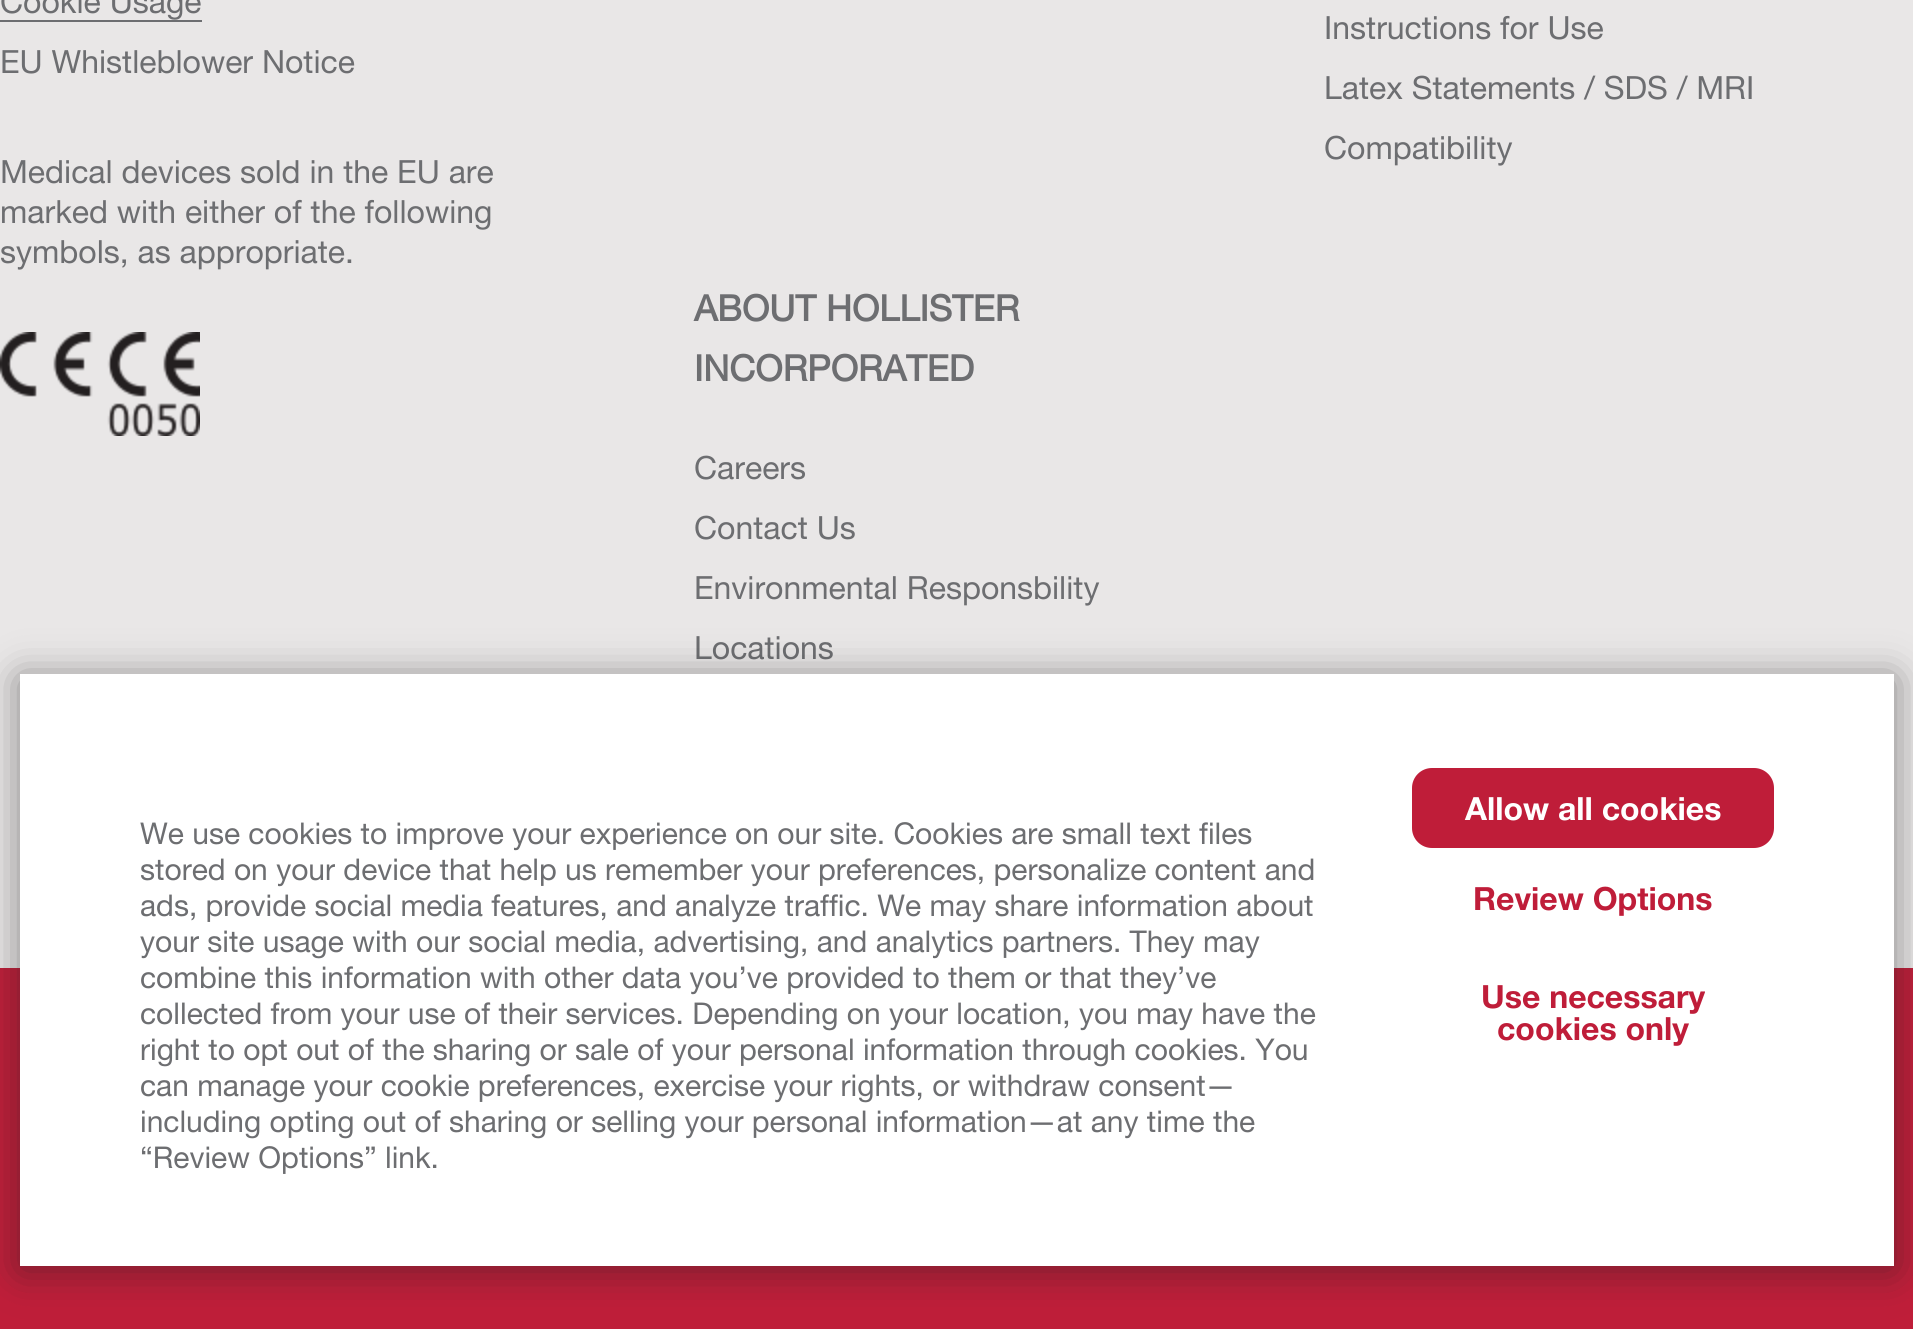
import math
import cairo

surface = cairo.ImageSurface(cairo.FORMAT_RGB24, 1913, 1329)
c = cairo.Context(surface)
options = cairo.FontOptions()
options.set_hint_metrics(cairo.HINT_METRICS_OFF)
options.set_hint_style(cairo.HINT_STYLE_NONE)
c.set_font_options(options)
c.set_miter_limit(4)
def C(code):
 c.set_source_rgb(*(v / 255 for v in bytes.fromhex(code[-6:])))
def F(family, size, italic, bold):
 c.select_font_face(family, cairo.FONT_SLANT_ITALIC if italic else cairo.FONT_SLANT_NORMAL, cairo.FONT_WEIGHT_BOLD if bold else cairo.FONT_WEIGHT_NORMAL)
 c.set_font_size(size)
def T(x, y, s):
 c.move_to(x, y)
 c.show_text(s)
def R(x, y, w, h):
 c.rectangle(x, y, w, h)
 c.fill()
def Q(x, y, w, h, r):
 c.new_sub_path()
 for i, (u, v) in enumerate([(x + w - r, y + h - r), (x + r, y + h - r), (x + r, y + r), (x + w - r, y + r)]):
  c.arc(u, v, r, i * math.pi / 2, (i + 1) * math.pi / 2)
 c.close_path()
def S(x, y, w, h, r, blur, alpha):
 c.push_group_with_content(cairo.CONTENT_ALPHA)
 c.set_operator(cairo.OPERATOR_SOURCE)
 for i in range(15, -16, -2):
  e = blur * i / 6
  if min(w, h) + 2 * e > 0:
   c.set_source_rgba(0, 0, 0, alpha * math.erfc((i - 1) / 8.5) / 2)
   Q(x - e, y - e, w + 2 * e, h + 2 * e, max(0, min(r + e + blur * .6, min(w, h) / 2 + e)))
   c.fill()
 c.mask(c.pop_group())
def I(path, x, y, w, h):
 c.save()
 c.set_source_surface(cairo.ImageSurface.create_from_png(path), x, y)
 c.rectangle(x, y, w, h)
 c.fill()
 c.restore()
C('e9e7e7')
c.paint()
F('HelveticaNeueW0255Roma',32,0,0)
C('6d6e71')
T(0,13,'Cookie Usage')
R(0,20,202,2)
T(0,73,'EU Whistleblower Notice')
T(0,183,'Medical devices sold in the EU are')
T(0,223,'marked with either of the following')
T(0,263,'symbols, as appropriate.')
I('1.png',0,332,200,104)
T(1324,39,'Instructions for Use')
T(1324,99,'Latex Statements / SDS / MRI')
T(1324,159,'Compatibility')
F('HelveticaNeueW0255Roma',36,0,1)
T(694,321,'ABOUT HOLLISTER')
T(694,381,'INCORPORATED')
F('HelveticaNeueW0255Roma',32,0,0)
T(694,479,'Careers')
T(694,539,'Contact Us')
T(694,599,'Environmental Responsbility')
T(694,659,'Locations')
C('bf1e39')
R(0,968,1913,361)
C('212121')
S(20,678,1874,592,0,20,.5)
C('ffffff')
R(20,674,1874,592)
F('HelveticaNeueW0255Roma',30,0,0)
C('6d6e71')
T(140,844,'We use cookies to improve your experience on our site. Cookies are small text files')
T(140,880,'stored on your device that help us remember your preferences, personalize content and')
T(140,916,'ads, provide social media features, and analyze traffic. We may share information about')
T(140,952,'your site usage with our social media, advertising, and analytics partners. They may')
T(140,988,'combine this information with other data you’ve provided to them or that they’ve')
T(140,1024,'collected from your use of their services. Depending on your location, you may have the')
T(140,1060,'right to opt out of the sharing or sale of your personal information through cookies. You')
T(140,1096,'can manage your cookie preferences, exercise your rights, or withdraw consent—')
T(140,1132,'including opting out of sharing or selling your personal information—at any time the')
T(140,1168,'“Review Options” link.')
C('bf1d39')
Q(1412,768,362,80,20)
c.fill()
F('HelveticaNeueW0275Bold',32,0,1)
C('ffffff')
T(1465,820,'Allow all cookies')
C('bf1d39')
T(1473,910,'Review Options')
T(1481,1008,'Use necessary')
T(1497,1040,'cookies only')
surface.write_to_png('o.png')
